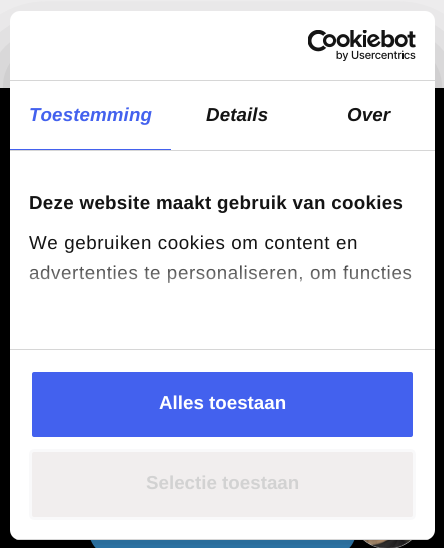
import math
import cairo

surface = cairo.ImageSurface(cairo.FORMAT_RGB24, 444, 548)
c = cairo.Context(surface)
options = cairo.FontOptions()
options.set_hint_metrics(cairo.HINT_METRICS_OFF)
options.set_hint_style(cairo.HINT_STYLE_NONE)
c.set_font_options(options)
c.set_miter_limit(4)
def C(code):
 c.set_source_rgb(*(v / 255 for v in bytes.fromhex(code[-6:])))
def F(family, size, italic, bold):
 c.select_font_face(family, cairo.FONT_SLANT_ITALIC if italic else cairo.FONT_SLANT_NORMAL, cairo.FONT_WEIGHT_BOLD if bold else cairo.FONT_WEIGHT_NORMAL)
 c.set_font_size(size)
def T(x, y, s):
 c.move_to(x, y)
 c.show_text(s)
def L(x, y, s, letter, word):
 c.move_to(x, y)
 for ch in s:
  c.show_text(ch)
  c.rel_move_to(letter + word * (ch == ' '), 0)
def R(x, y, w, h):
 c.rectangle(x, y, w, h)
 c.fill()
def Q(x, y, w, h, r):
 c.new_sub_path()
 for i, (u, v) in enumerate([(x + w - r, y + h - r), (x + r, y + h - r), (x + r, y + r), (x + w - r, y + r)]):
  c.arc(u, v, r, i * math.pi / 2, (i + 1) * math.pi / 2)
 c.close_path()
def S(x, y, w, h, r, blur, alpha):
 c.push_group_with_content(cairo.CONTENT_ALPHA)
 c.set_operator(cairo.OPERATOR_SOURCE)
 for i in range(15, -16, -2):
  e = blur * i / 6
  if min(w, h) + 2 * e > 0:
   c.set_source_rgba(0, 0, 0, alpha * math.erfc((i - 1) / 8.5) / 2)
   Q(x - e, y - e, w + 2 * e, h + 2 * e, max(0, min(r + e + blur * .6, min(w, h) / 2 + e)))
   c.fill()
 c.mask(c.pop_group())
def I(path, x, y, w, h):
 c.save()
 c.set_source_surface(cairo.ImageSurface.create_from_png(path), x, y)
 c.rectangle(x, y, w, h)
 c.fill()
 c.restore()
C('f4f3f4')
c.paint()
C('000000')
R(0,88,444,460)
C('3891cf')
Q(89,506,267,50,25)
c.fill()
C('000000')
S(350,476,75,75,37.5,6,.2)
C('ffffff')
c.arc(387.5,511.5,37.5,0,2 * math.pi)
c.fill()
I('2.png',364,540,47,8)
C('000000')
S(10,51,425,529,10,42.5,.3)
C('ffffff')
Q(10,11,425,529,10)
c.fill()
C('d6d6d6')
R(10,80,425,1)
I('1.png',308,30,108,31)
R(10,150,425,1)
C('4361ee')
R(10,149,161,1)
F('Liberation Sans',18.75,1,1)
L(29,121,'Toestemming',.1,0)
C('141414')
L(206,121,'Details',.1,0)
L(347,121,'Over',.1,0)
C('d6d6d6')
R(10,349,425,1)
F('Liberation Sans',18.75,0,1)
C('141414')
L(29,209,'Deze website maakt gebruik van cookies',.3,0)
F('Liberation Sans',18.75,0,0)
L(29,249,'We gebruiken cookies om content en',.6,0)
L(29,279,'advertenties te personaliseren, om functies',.6,0)
gradient = cairo.LinearGradient(214,348,214,254)
gradient.add_color_stop_rgba(0,1,1,1,1)
gradient.add_color_stop_rgba(.5,1,1,1,.8)
gradient.add_color_stop_rgba(1,1,1,1,0)
c.set_source(gradient)
R(29,265,383,18)
c.save()
Q(10,11,425,529,10)
c.clip()
C('d6d6d6')
R(10,539,425,1)
c.restore()
C('4361ee')
Q(30.5,370.5,384,68,3.5)
c.fill_preserve()
C('ffffff')
c.set_line_width(3)
c.stroke()
F('Liberation Sans',18.75,0,1)
T(159,409,'Alles toestaan')
C('f1eeee')
Q(30.5,450.5,384,68,3.5)
c.fill_preserve()
C('f9f9fa')
c.stroke()
C('d2d2d2')
T(146,489,'Selectie toestaan')
surface.write_to_png('o.png')
